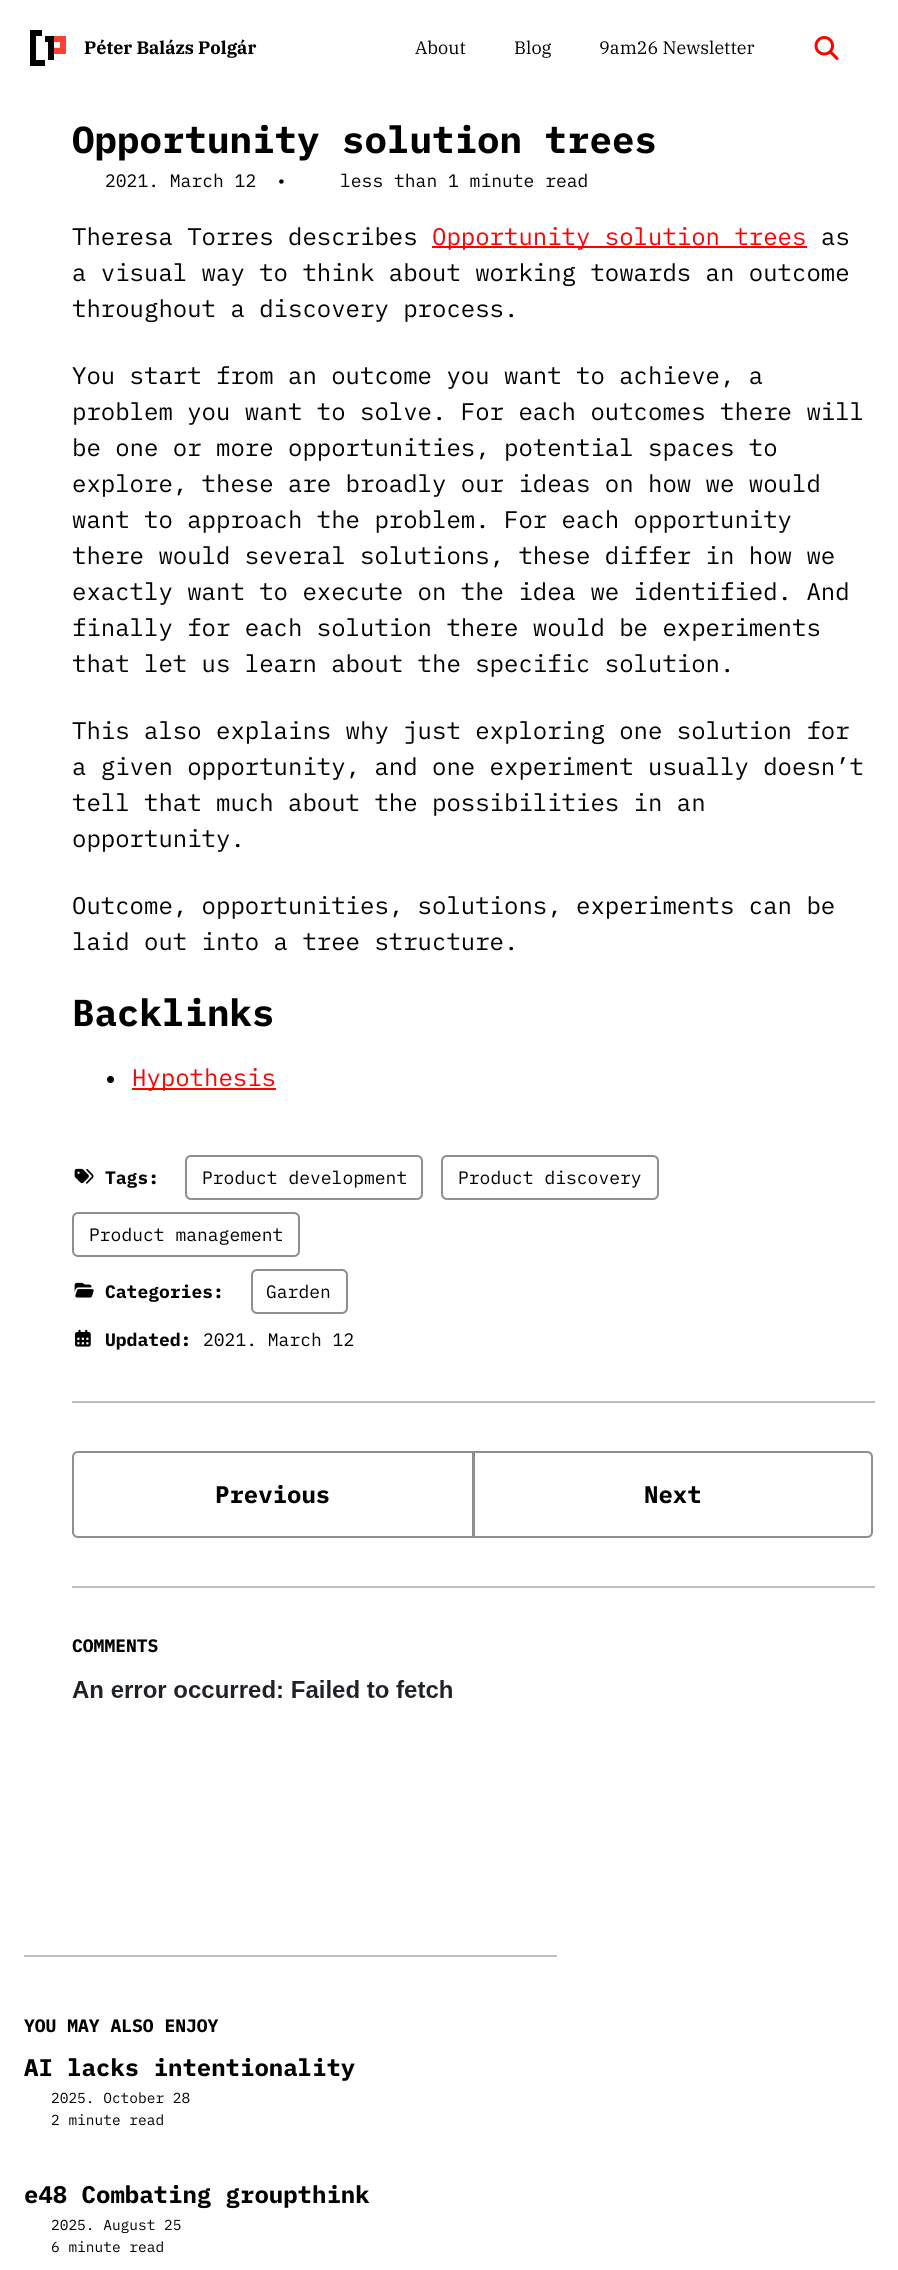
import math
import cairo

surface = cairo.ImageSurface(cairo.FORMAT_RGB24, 898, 2270)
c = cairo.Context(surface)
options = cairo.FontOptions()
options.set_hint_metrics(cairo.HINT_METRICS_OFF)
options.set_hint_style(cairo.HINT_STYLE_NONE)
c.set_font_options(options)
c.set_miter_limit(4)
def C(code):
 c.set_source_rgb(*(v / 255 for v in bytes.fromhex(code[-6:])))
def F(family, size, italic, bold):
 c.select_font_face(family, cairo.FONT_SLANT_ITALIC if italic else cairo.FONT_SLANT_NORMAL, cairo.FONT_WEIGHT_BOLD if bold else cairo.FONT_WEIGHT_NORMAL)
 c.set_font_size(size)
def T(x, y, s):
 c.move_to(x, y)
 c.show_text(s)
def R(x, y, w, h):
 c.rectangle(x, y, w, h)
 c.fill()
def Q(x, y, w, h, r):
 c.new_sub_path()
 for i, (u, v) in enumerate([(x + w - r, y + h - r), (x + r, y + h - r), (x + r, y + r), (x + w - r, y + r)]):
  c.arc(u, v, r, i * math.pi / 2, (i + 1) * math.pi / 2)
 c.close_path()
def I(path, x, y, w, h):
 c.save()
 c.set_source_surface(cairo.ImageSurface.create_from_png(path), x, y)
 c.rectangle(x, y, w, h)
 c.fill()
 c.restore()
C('ffffff')
c.paint()
I('1.png',30,30,36,36)
F('IBM Plex Serif',18,0,1)
C('000000')
T(84,54,'Péter Balázs Polgár')
F('IBM Plex Serif',18,0,0)
T(415,54,'About')
T(514,54,'Blog')
T(599,54,'9am26 Newsletter')
I('2.png',814,36,25,24)
F('IBM Plex Mono',37.5,0,1)
T(72,153,'Opportunity solution trees')
F('IBM Plex Mono',18,0,0)
T(105,187,'2021. March 12')
T(276,187,'•')
T(340,187,'less than 1 minute read')
F('IBM Plex Mono',24,0,0)
T(72,245,'Theresa Torres describes')
C('ff0000')
R(432,246,375,2)
T(432,245,'Opportunity solution trees')
C('000000')
T(821,245,'as')
T(72,281,'a visual way to think about working towards an outcome')
T(72,317,'throughout a discovery process.')
T(72,384,'You start from an outcome you want to achieve, a')
T(72,420,'problem you want to solve. For each outcomes there will')
T(72,456,'be one or more opportunities, potential spaces to')
T(72,492,'explore, these are broadly our ideas on how we would')
T(72,528,'want to approach the problem. For each opportunity')
T(72,564,'there would several solutions, these differ in how we')
T(72,600,'exactly want to execute on the idea we identified. And')
T(72,636,'finally for each solution there would be experiments')
T(72,672,'that let us learn about the specific solution.')
T(72,739,'This also explains why just exploring one solution for')
T(72,775,'a given opportunity, and one experiment usually doesn’t')
T(72,811,'tell that much about the possibilities in an')
T(72,847,'opportunity.')
T(72,914,'Outcome, opportunities, solutions, experiments can be')
T(72,950,'laid out into a tree structure.')
F('IBM Plex Mono',37.5,0,1)
T(72,1026,'Backlinks')
c.new_path()
c.arc(110.5,1079.5,3.5,0,2 * math.pi)
c.fill()
C('ff0000')
R(132,1088,144,2)
F('IBM Plex Mono',24,0,0)
T(132,1086,'Hypothesis')
Q(186,1156,236,43,5)
C('8f8f8f')
c.stroke()
F('IBM Plex Mono',18,0,0)
C('000000')
T(202,1184,'Product development')
Q(442,1156,216,43,5)
C('8f8f8f')
c.stroke()
C('000000')
T(458,1184,'Product discovery')
Q(73,1213,226,43,5)
C('8f8f8f')
c.stroke()
C('000000')
T(89,1241,'Product management')
I('3.png',74,1168,20,16)
F('IBM Plex Mono',18,0,1)
T(105,1184,'Tags:')
I('4.png',74,1282,20,16)
T(105,1298,'Categories:')
Q(252,1270,95,43,5)
C('8f8f8f')
c.stroke()
F('IBM Plex Mono',18,0,0)
C('000000')
T(266,1298,'Garden')
I('5.png',75,1329,16,18)
F('IBM Plex Mono',18,0,1)
T(105,1346,'Updated:')
F('IBM Plex Mono',18,0,0)
T(203,1346,'2021. March 12')
C('bfbfbf')
R(72,1401,803,2)
c.new_path()
c.move_to(78,1452)
c.line_to(473,1452)
c.line_to(473,1537)
c.line_to(78,1537)
c.curve_to(75,1537,73,1535,73,1532)
c.line_to(73,1457)
c.curve_to(73,1454,75,1452,78,1452)
c.close_path()
C('8f8f8f')
c.stroke()
F('IBM Plex Mono',24,0,1)
C('000000')
T(215,1503,'Previous')
c.new_path()
c.move_to(474,1452)
c.line_to(867,1452)
c.curve_to(870,1452,872,1454,872,1457)
c.line_to(872,1532)
c.curve_to(872,1535,870,1537,867,1537)
c.line_to(474,1537)
c.close_path()
C('8f8f8f')
c.stroke()
C('000000')
T(644,1503,'Next')
C('bfbfbf')
R(72,1586,803,2)
F('IBM Plex Mono',18,0,1)
C('000000')
T(72,1652,'COMMENTS')
I('6.png',72,1680,380,18)
C('bfbfbf')
R(24,1955,533,2)
C('000000')
T(24,2032,'YOU MAY ALSO ENJOY')
F('IBM Plex Mono',24,0,1)
T(24,2076,'AI lacks intentionality')
F('IBM Plex Mono',14.5,0,0)
T(51,2103,'2025. October 28')
T(51,2125,'2 minute read')
F('IBM Plex Mono',24,0,1)
T(24,2203,'e48 Combating groupthink')
F('IBM Plex Mono',14.5,0,0)
T(51,2230,'2025. August 25')
T(51,2252,'6 minute read')
surface.write_to_png('o.png')
